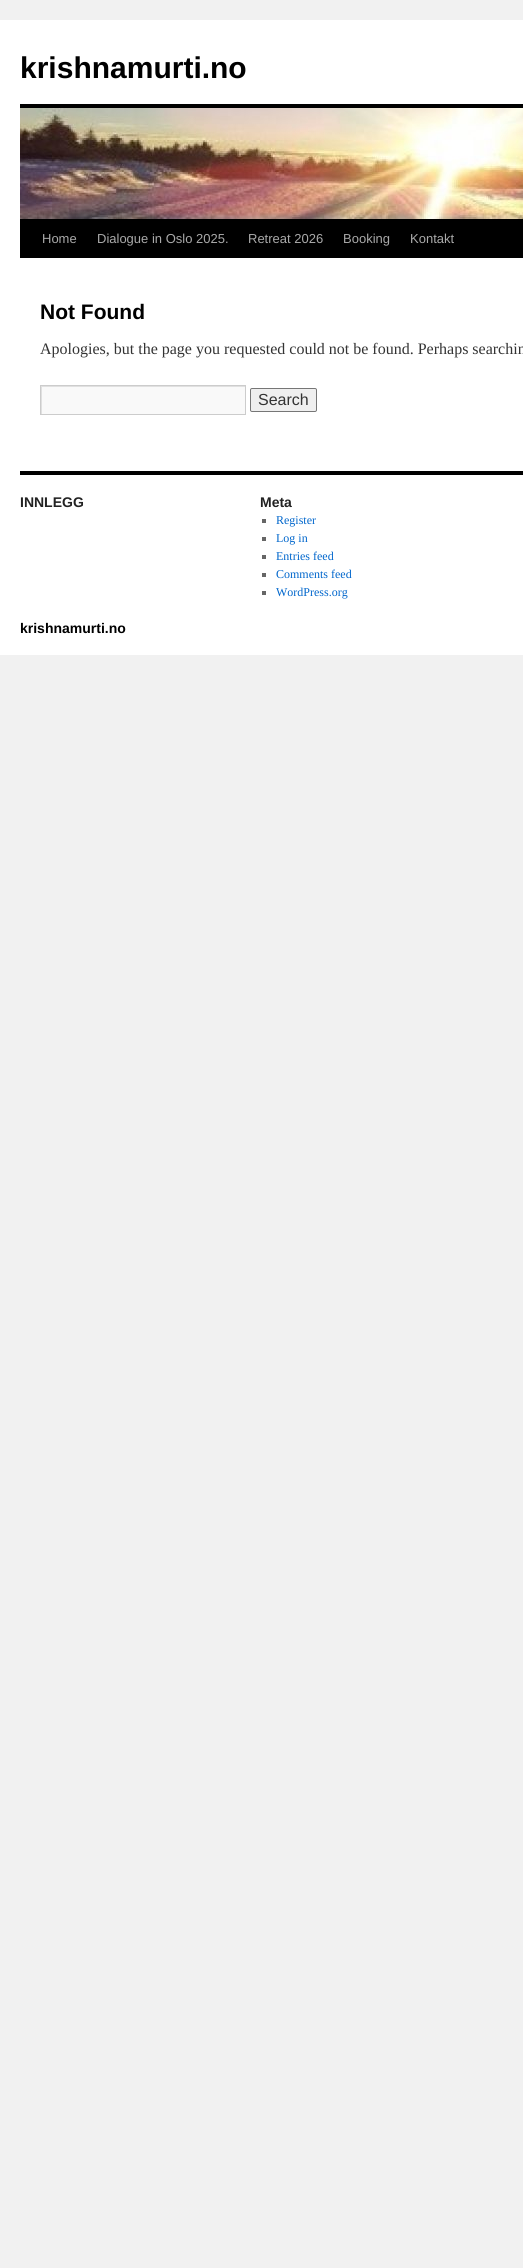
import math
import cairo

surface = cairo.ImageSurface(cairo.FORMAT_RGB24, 523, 2268)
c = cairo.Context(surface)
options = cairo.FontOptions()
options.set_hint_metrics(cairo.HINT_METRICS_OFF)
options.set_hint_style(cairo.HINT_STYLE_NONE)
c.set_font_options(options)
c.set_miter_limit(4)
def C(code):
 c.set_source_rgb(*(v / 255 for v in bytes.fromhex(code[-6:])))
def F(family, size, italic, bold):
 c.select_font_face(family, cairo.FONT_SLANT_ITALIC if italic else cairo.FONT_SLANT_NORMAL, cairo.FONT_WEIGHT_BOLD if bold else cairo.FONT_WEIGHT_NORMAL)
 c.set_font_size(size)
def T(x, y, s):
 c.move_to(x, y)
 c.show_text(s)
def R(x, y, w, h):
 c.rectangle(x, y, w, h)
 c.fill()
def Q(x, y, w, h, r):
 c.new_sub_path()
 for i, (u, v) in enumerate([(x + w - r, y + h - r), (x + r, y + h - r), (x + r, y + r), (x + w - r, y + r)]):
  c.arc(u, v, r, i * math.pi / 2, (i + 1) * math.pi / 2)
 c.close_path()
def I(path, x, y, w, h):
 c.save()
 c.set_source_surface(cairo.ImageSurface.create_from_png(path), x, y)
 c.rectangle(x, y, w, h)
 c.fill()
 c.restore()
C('f1f1f1')
c.paint()
C('ffffff')
R(0,20,523,635)
F('Liberation Sans',30,0,1)
C('000000')
T(20,78,'krishnamurti.no')
R(20,104,503,4)
R(20,219,503,39)
I('1.png',20,108,503,111)
F('Liberation Sans',13,0,0)
C('aaaaaa')
T(42,243,'Home')
T(97,243,'Dialogue in Oslo 2025.')
T(248,243,'Retreat 2026')
T(343,243,'Booking')
T(410,243,'Kontakt')
F('Liberation Sans',21,0,1)
C('000000')
T(40,319,'Not Found')
F('Liberation Serif',16,0,0)
C('333333')
T(40,354,'Apologies, but the page you requested could not be found. Perhaps searchin')
C('f9f9f9')
R(42,387,203,27)
c.save()
c.rectangle(41,386,204,28)
c.clip()
C('e0e0e0')
c.set_fill_rule(cairo.FILL_RULE_EVEN_ODD)
c.new_path()
c.move_to(-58,287)
c.line_to(344,287)
c.line_to(344,513)
c.line_to(-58,513)
c.close_path()
c.move_to(42,387)
c.line_to(246,387)
c.line_to(246,415)
c.line_to(42,415)
c.close_path()
c.fill()
c.restore()
c.rectangle(40.5,385.5,205,29)
C('cccccc')
c.set_line_width(1)
c.stroke()
C('efefef')
Q(250.5,388.5,66,23,1.5)
c.fill_preserve()
C('767676')
c.stroke()
F('Liberation Sans',16,0,0)
C('333333')
T(258,405,'Search')
C('000000')
R(20,471,503,4)
F('Liberation Sans',14,0,1)
C('222222')
T(20,507,'INNLEGG')
T(260,507,'Meta')
C('666666')
R(262,519,4,4)
F('Liberation Serif',12,0,0)
C('0066cc')
T(276,524,'Register')
C('666666')
R(262,537,4,4)
C('0066cc')
T(276,542,'Log in')
C('666666')
R(262,555,4,4)
C('0066cc')
T(276,560,'Entries feed')
C('666666')
R(262,573,4,4)
C('0066cc')
T(276,578,'Comments feed')
C('666666')
R(262,591,4,4)
C('0066cc')
T(276,596,'WordPress.org')
F('Liberation Sans',14,0,1)
C('000000')
T(20,633,'krishnamurti.no')
surface.write_to_png('o.png')
